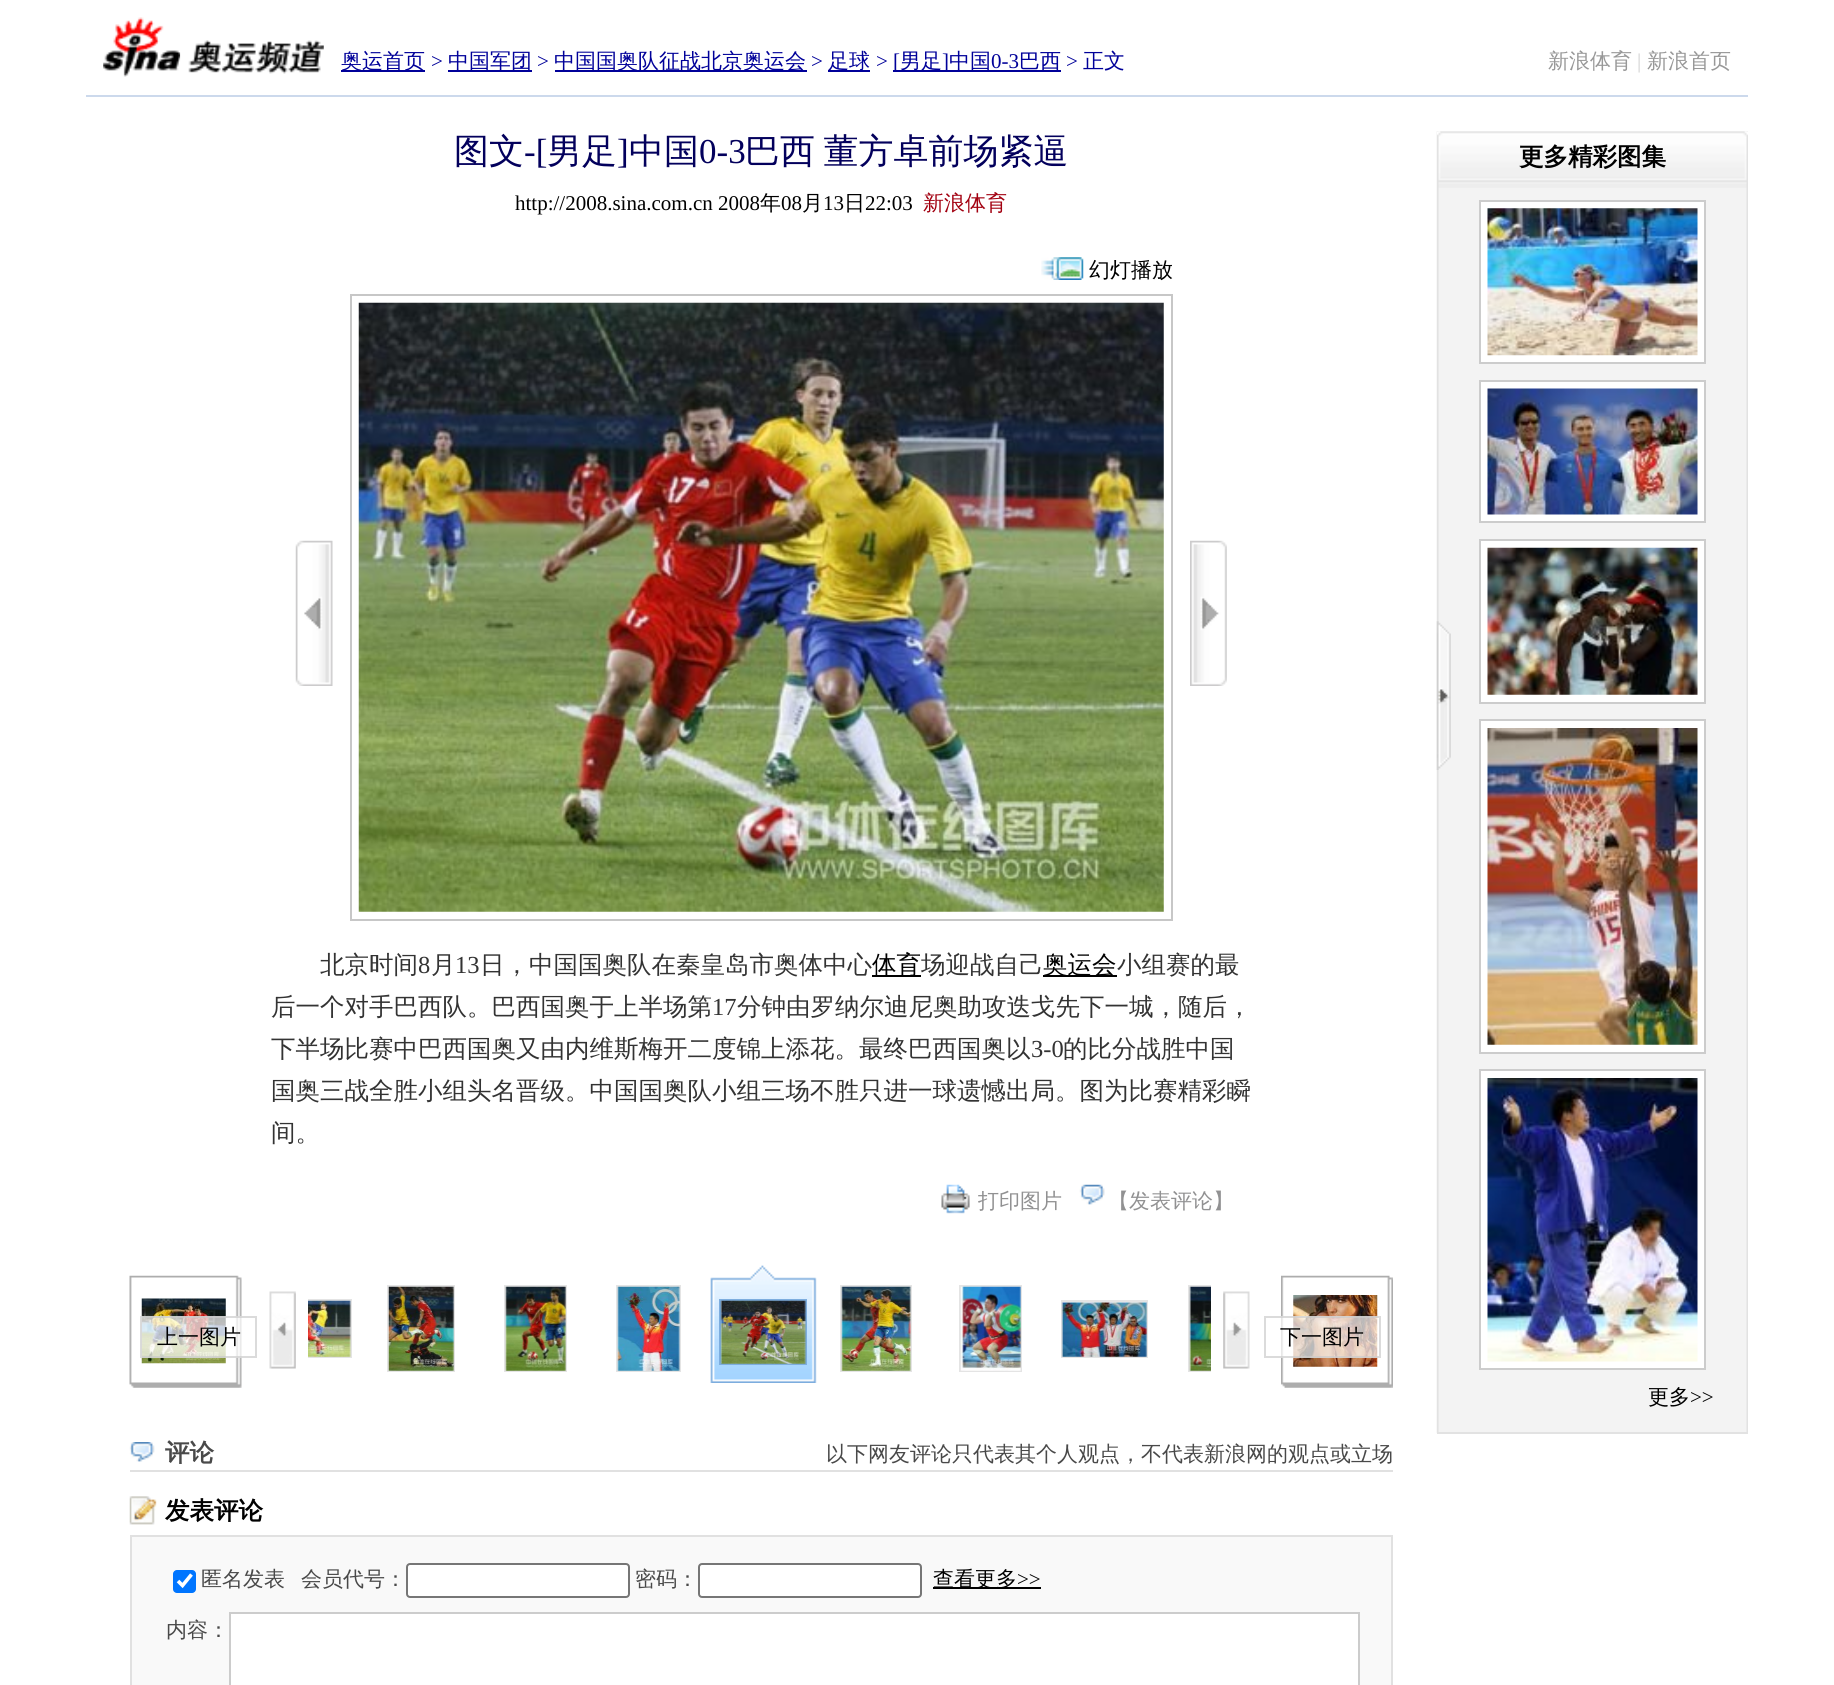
import math
import cairo

surface = cairo.ImageSurface(cairo.FORMAT_RGB24, 1834, 1685)
c = cairo.Context(surface)
options = cairo.FontOptions()
options.set_hint_metrics(cairo.HINT_METRICS_OFF)
options.set_hint_style(cairo.HINT_STYLE_NONE)
c.set_font_options(options)
c.set_miter_limit(4)
def C(code):
 c.set_source_rgb(*(v / 255 for v in bytes.fromhex(code[-6:])))
def F(family, size, italic, bold):
 c.select_font_face(family, cairo.FONT_SLANT_ITALIC if italic else cairo.FONT_SLANT_NORMAL, cairo.FONT_WEIGHT_BOLD if bold else cairo.FONT_WEIGHT_NORMAL)
 c.set_font_size(size)
def T(x, y, s):
 c.move_to(x, y)
 c.show_text(s)
def L(x, y, s, letter, word):
 c.move_to(x, y)
 for ch in s:
  c.show_text(ch)
  c.rel_move_to(letter + word * (ch == ' '), 0)
def R(x, y, w, h):
 c.rectangle(x, y, w, h)
 c.fill()
def Q(x, y, w, h, r):
 c.new_sub_path()
 for i, (u, v) in enumerate([(x + w - r, y + h - r), (x + r, y + h - r), (x + r, y + r), (x + w - r, y + r)]):
  c.arc(u, v, r, i * math.pi / 2, (i + 1) * math.pi / 2)
 c.close_path()
def I(path, x, y, w, h):
 c.save()
 c.set_source_surface(cairo.ImageSurface.create_from_png(path), x, y)
 c.rectangle(x, y, w, h)
 c.fill()
 c.restore()
C('ffffff')
c.paint()
C('ccd9ec')
R(86,95,1662,2)
I('1.png',103,17,78,60)
I('2.png',180,40,144,34)
C('000099')
R(341,70,84,2)
F('WenQuanYi Zen Hei Medium',21,0,0)
T(341,68,'奥运首页')
F('Liberation Serif',21,0,0)
T(431,68,'>')
R(448,70,84,2)
F('WenQuanYi Zen Hei Medium',21,0,0)
T(448,68,'中国军团')
F('Liberation Serif',21,0,0)
T(537,68,'>')
R(555,70,252,2)
F('WenQuanYi Zen Hei Medium',21,0,0)
T(554,68,'中国国奥队征战北京奥运会')
F('Liberation Serif',21,0,0)
T(811,68,'>')
R(828,70,42,2)
F('WenQuanYi Zen Hei Medium',21,0,0)
T(828,68,'足球')
F('Liberation Serif',21,0,0)
T(876,68,'>')
R(893,70,168,2)
T(893,68,'[')
F('WenQuanYi Zen Hei Medium',21,0,0)
T(900,68,'男足')
F('Liberation Serif',21,0,0)
T(942,68,']')
F('WenQuanYi Zen Hei Medium',21,0,0)
T(949,68,'中国')
F('Liberation Serif',21,0,0)
T(991,68,'0-3')
F('WenQuanYi Zen Hei Medium',21,0,0)
T(1019,68,'巴西')
F('Liberation Serif',21,0,0)
T(1066,68,'>')
F('WenQuanYi Zen Hei Medium',21,0,0)
T(1083,68,'正文')
C('989898')
T(1548,68,'新浪体育')
F('Liberation Serif',21,0,0)
C('d1d1d1')
T(1637,68,'|')
F('WenQuanYi Zen Hei Medium',21,0,0)
C('989898')
T(1647,68,'新浪首页')
F('WenQuanYi Zen Hei Medium',35,0,0)
C('03005c')
T(454,163,'图文')
F('Liberation Serif',35,0,0)
T(524,163,'-[')
F('WenQuanYi Zen Hei Medium',35,0,0)
T(547,163,'男足')
F('Liberation Serif',35,0,0)
T(617,163,']')
F('WenQuanYi Zen Hei Medium',35,0,0)
T(629,163,'中国')
F('Liberation Serif',35,0,0)
T(699,163,'0-3')
F('WenQuanYi Zen Hei Medium',35,0,0)
L(745,163,'巴西 董方卓前场紧逼',0,-2)
F('Liberation Serif',21,0,0)
C('000000')
T(515,210,'http://2008.sina.com.cn 2008')
F('WenQuanYi Zen Hei Medium',21,0,0)
T(760,210,'年')
F('Liberation Serif',21,0,0)
T(781,210,'08')
F('WenQuanYi Zen Hei Medium',21,0,0)
T(802,210,'月')
F('Liberation Serif',21,0,0)
T(823,210,'13')
F('WenQuanYi Zen Hei Medium',21,0,0)
T(844,210,'日')
F('Liberation Serif',21,0,0)
T(865,210,'22:03')
F('WenQuanYi Zen Hei Medium',21,0,0)
C('a20010')
T(923,210,'新浪体育')
I('3.png',1041,257,43,23)
C('000000')
T(1089,277,'幻灯播放')
I('4.png',295,540,38,146)
c.rectangle(351,295,821,625)
C('c7c7c7')
c.stroke()
I('5.png',358,302,806,610)
I('6.png',1190,540,37,146)
F('WenQuanYi Zen Hei Medium',24.5,0,0)
C('333333')
T(320,973,'北京时间')
F('Liberation Serif',24.5,0,0)
T(418,973,'8')
F('WenQuanYi Zen Hei Medium',24.5,0,0)
T(431,973,'月')
F('Liberation Serif',24.5,0,0)
T(455,973,'13')
F('WenQuanYi Zen Hei Medium',24.5,0,0)
T(480,973,'日，中国国奥队在秦皇岛市奥体中心')
C('000000')
R(872,975,49,2)
T(872,973,'体育')
C('333333')
T(921,973,'场迎战自己')
C('000000')
R(1043,975,74,2)
T(1043,973,'奥运会')
C('333333')
T(1117,973,'小组赛的最')
T(271,1015,'后一个对手巴西队。巴西国奥于上半场第')
F('Liberation Serif',24.5,0,0)
T(712,1015,'17')
F('WenQuanYi Zen Hei Medium',24.5,0,0)
T(737,1015,'分钟由罗纳尔迪尼奥助攻迭戈先下一城，随后，')
T(271,1057,'下半场比赛中巴西国奥又由内维斯梅开二度锦上添花。最终巴西国奥以')
F('Liberation Serif',24.5,0,0)
T(1031,1057,'3-0')
F('WenQuanYi Zen Hei Medium',24.5,0,0)
T(1063,1057,'的比分战胜中国')
T(271,1099,'国奥三战全胜小组头名晋级。中国国奥队小组三场不胜只进一球遗憾出局。图为比赛精彩瞬')
T(271,1141,'间。')
I('7.png',941,1184,29,30)
F('WenQuanYi Zen Hei Medium',21,0,0)
C('919192')
T(978,1208,'打印图片')
I('8.png',1079,1184,26,21)
T(1108,1208,'【发表评论】')
I('9.png',129,1275,113,113)
I('10.png',141,1298,85,66)
c.set_source_rgba(1,1,1,0.7)
R(141,1316,101,42)
c.rectangle(141,1317,115,40)
c.set_source_rgba(0.8,0.8,0.8,0.7)
c.stroke()
C('000000')
T(157,1344,'上一图片')
I('21.png',269,1291,27,78)
c.save()
c.rectangle(308,1257,903,126)
c.clip()
c.rectangle(265,1300,86,57)
C('e4e4e4')
c.stroke()
c.restore()
I('11.png',308,1300,43,57)
c.rectangle(388,1286,66,85)
C('e4e4e4')
c.stroke()
I('12.png',388,1286,66,85)
c.rectangle(505,1286,61,85)
c.stroke()
I('13.png',505,1286,61,85)
c.rectangle(617,1286,63,85)
c.stroke()
I('14.png',617,1286,63,85)
I('15.png',710,1265,107,118)
c.rectangle(720,1300,86,64)
C('7dadde')
c.stroke()
I('16.png',720,1300,86,64)
c.rectangle(841,1286,70,85)
C('e4e4e4')
c.stroke()
I('17.png',841,1286,70,85)
c.rectangle(960,1286,61,85)
c.stroke()
I('18.png',960,1286,61,85)
c.rectangle(1062,1301,85,56)
c.stroke()
I('19.png',1061,1302,86,55)
c.save()
c.rectangle(308,1257,903,126)
c.clip()
c.rectangle(1189,1286,58,85)
c.stroke()
c.restore()
I('20.png',1189,1286,22,85)
I('22.png',1223,1291,27,78)
I('23.png',1281,1275,112,113)
I('24.png',1293,1295,85,72)
c.set_source_rgba(1,1,1,0.7)
R(1281,1316,97,42)
c.rectangle(1265,1317,115,40)
c.set_source_rgba(0.8,0.8,0.8,0.7)
c.stroke()
C('000000')
T(1280,1344,'下一图片')
C('e1e1e1')
R(130,1470,1263,2)
I('25.png',129,1442,26,20)
F('WenQuanYi Zen Hei',24.5,0,1)
C('494949')
T(165,1461,'评论')
F('WenQuanYi Zen Hei Medium',21,0,0)
T(826,1461,'以下网友评论只代表其个人观点，不代表新浪网的观点或立场')
I('26.png',129,1496,28,29)
F('WenQuanYi Zen Hei',24.5,0,1)
C('000000')
T(165,1519,'发表评论')
C('f9f9f9')
c.rectangle(131,1536,1261,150)
c.fill_preserve()
C('e1e1e1')
c.stroke()
C('0075ff')
Q(173,1570,23,23,4)
c.fill()
c.new_path()
c.move_to(178,1581)
c.line_to(182.5,1585.5)
c.line_to(191.5,1574.5)
C('ffffff')
c.set_line_width(3.6)
c.stroke()
F('WenQuanYi Zen Hei Medium',21,0,0)
C('494949')
T(201,1586,'匿名发表')
T(301,1586,'会员代号：')
C('ffffff')
Q(407,1564,222,33,3)
c.fill_preserve()
C('767676')
c.set_line_width(2)
c.stroke()
C('494949')
T(635,1586,'密码：')
C('ffffff')
Q(699,1564,222,33,3)
c.fill_preserve()
C('767676')
c.stroke()
C('000000')
R(933,1587,108,2)
T(933,1586,'查看更多')
F('Liberation Serif',21,0,0)
T(1017,1586,'>>')
F('WenQuanYi Zen Hei Medium',21,0,0)
C('494949')
T(166,1637,'内容：')
C('ffffff')
c.rectangle(230,1613,1129,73)
c.fill_preserve()
C('cccccc')
c.stroke()
I('27.png',1436,131,312,1303)
C('e2e2e2')
R(1437,1432,311,2)
I('28.png',1436,621,15,149)
I('29.png',1437,131,311,57)
F('WenQuanYi Zen Hei',24.5,0,1)
C('000000')
T(1519,165,'更多精彩图集')
C('ffffff')
c.rectangle(1480,201,225,162)
c.fill_preserve()
C('cccccc')
c.stroke()
I('30.png',1487,208,211,148)
C('ffffff')
c.rectangle(1480,381,225,141)
c.fill_preserve()
C('cccccc')
c.stroke()
I('31.png',1487,388,211,127)
C('ffffff')
c.rectangle(1480,540,225,163)
c.fill_preserve()
C('cccccc')
c.stroke()
I('32.png',1487,547,211,148)
C('ffffff')
c.rectangle(1480,720,225,333)
c.fill_preserve()
C('cccccc')
c.stroke()
I('33.png',1487,728,211,317)
C('ffffff')
c.rectangle(1480,1070,225,299)
c.fill_preserve()
C('cccccc')
c.stroke()
I('34.png',1487,1078,211,284)
F('WenQuanYi Zen Hei Medium',21,0,0)
C('000000')
T(1648,1404,'更多')
F('Liberation Serif',21,0,0)
T(1690,1404,'>>')
surface.write_to_png('o.png')
